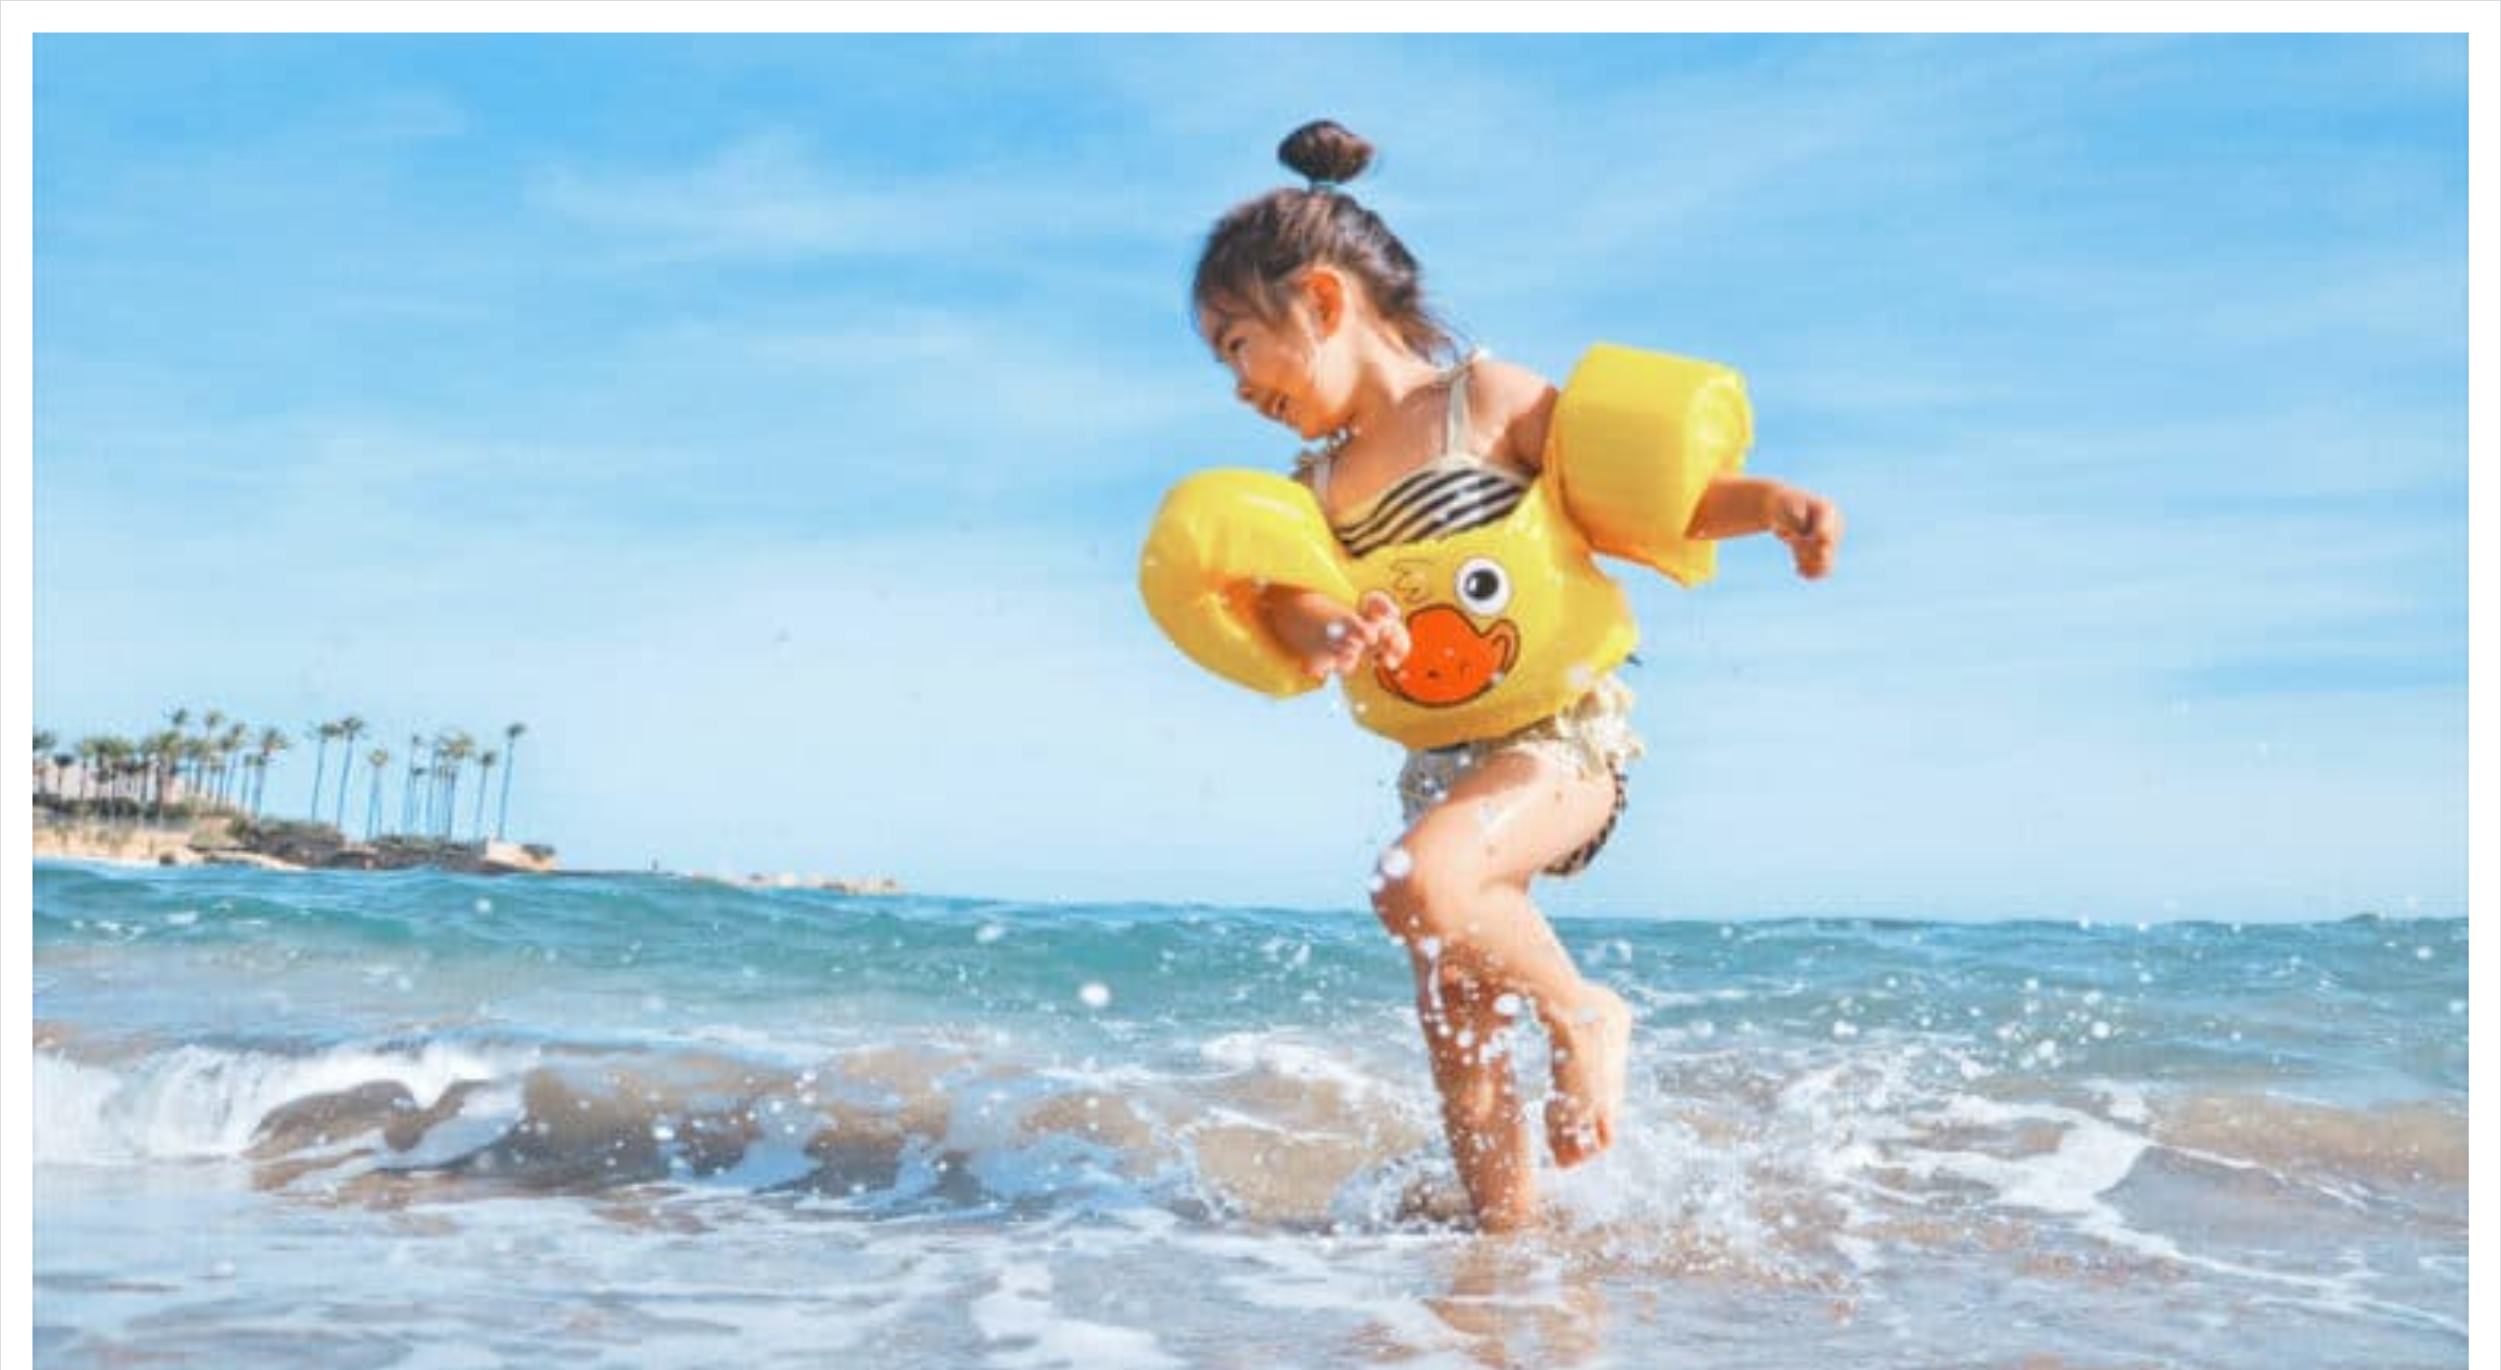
import math
import cairo

surface = cairo.ImageSurface(cairo.FORMAT_RGB24, 2501, 1370)
c = cairo.Context(surface)
options = cairo.FontOptions()
options.set_hint_metrics(cairo.HINT_METRICS_OFF)
options.set_hint_style(cairo.HINT_STYLE_NONE)
c.set_font_options(options)
c.set_miter_limit(4)
def C(code):
 c.set_source_rgb(*(v / 255 for v in bytes.fromhex(code[-6:])))
def I(path, x, y, w, h):
 c.save()
 c.set_source_surface(cairo.ImageSurface.create_from_png(path), x, y)
 c.rectangle(x, y, w, h)
 c.fill()
 c.restore()
C('ffffff')
c.paint()
c.rectangle(.5,.5,2500,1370)
C('dcdcde')
c.set_line_width(1)
c.stroke()
I('1.png',32,32,2437,1338)
surface.write_to_png('o.png')
